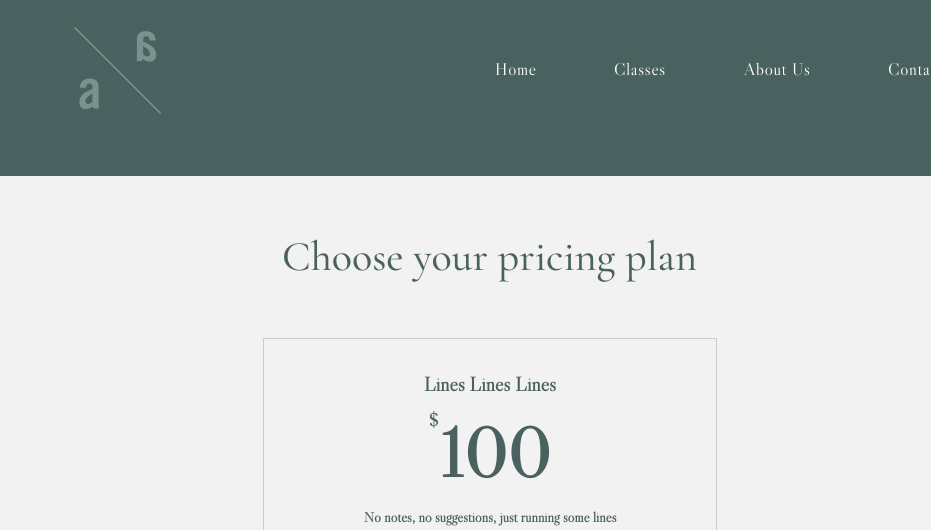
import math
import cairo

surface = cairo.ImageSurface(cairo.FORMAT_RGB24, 931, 530)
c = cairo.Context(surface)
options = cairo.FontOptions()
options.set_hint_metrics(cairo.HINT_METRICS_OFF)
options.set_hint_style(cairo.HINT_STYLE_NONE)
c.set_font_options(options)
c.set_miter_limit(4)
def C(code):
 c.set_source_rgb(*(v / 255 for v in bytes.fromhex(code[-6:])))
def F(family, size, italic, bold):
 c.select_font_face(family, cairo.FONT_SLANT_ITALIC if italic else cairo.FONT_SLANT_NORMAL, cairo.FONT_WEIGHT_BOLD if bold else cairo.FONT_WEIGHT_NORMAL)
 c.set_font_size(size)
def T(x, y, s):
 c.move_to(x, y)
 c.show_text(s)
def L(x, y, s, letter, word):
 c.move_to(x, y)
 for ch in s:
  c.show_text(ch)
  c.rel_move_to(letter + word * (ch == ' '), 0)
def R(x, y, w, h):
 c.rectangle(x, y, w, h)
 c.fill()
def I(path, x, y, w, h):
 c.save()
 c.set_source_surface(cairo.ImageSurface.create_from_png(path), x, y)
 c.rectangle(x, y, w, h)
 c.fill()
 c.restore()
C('4a625f')
c.paint()
I('1.png',74,27,87,87)
F('Libre Caslon Display',17,0,0)
C('ffffff')
L(495,75,'Home',.75,0)
L(614,75,'Classes',.75,0)
L(744,75,'About Us',.75,0)
L(888,75,'Conta',.75,0)
C('f2f2f2')
R(0,176,931,354)
F('Cormorant Garamond Medium',42,0,0)
C('4a625f')
T(282,270,'Choose your pricing plan')
c.rectangle(263.5,338.5,453,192)
C('cbcbcb')
c.set_line_width(1)
c.stroke()
F('Libre Caslon Display',20,0,1)
C('4a625f')
T(424,391,'Lines Lines Lines')
F('Libre Caslon Display',18,0,1)
T(429,426,'$')
F('Libre Caslon Display',70,0,1)
T(440,477,'100')
F('Libre Caslon Display',14,0,1)
T(364,522,'No notes, no suggestions, just running some lines')
surface.write_to_png('o.png')
